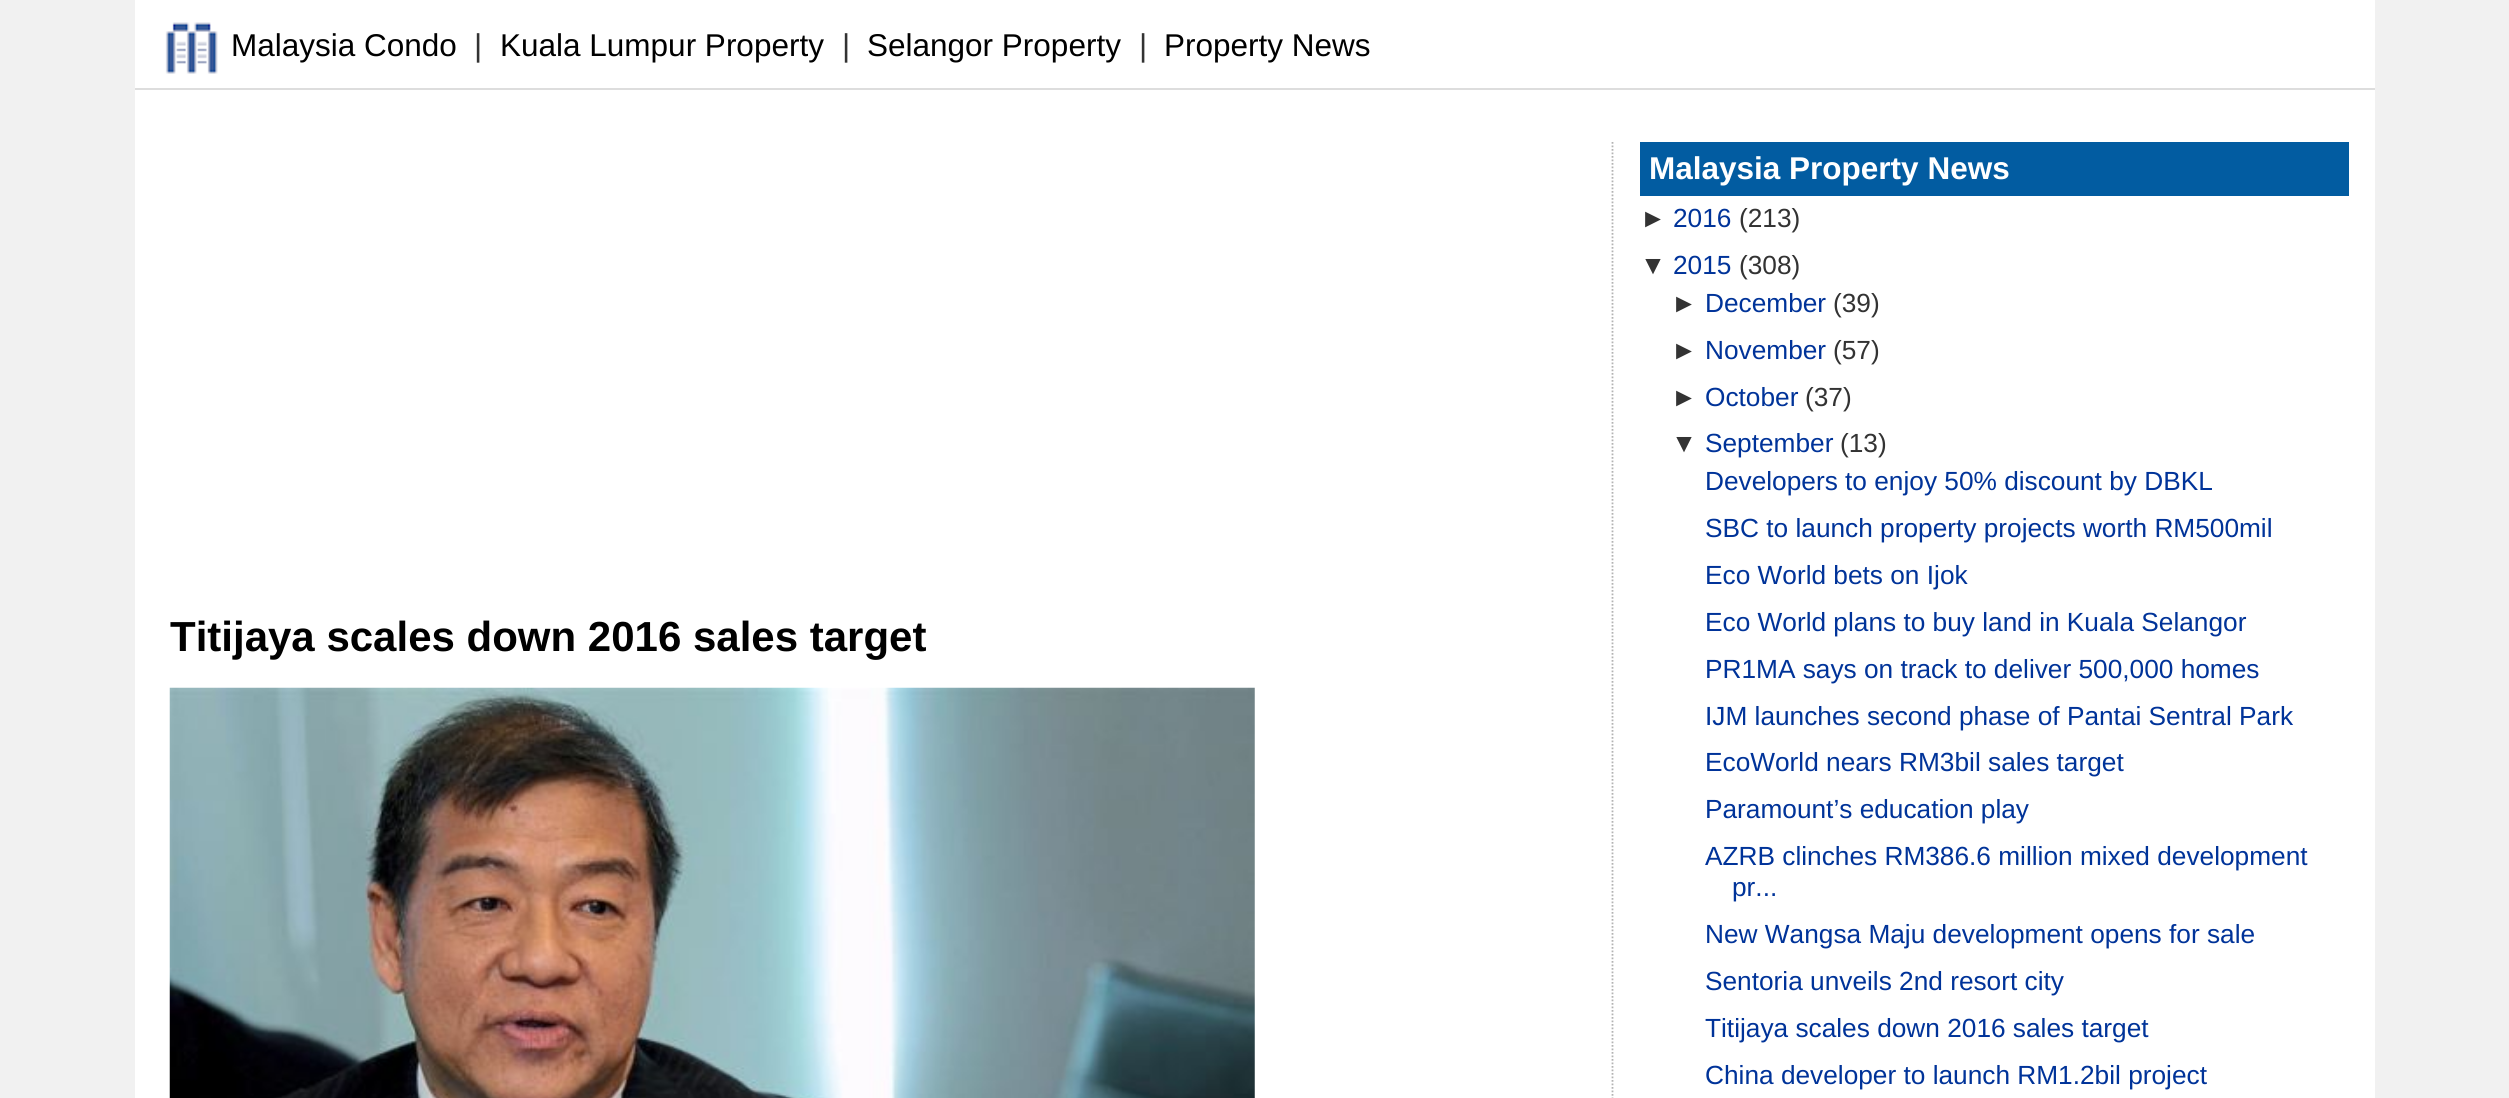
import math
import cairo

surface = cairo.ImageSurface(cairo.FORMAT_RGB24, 2509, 1098)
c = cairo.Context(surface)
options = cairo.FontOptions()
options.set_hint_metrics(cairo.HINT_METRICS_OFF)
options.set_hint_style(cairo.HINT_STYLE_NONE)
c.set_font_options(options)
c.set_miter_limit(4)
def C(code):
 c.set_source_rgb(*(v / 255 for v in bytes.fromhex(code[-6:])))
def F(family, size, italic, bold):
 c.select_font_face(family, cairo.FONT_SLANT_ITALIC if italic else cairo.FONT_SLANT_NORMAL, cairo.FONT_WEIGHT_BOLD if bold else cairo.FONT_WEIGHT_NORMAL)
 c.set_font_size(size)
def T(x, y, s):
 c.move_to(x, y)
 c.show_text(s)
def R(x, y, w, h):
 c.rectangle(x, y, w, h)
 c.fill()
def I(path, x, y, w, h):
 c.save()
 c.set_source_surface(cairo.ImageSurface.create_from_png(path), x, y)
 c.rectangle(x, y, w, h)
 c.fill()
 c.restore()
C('f1f1f1')
c.paint()
C('ffffff')
R(135,0,2240,1098)
C('dddddd')
R(135,88,2240,2)
I('1.png',165,22,53,52)
F('Liberation Sans',31.5,0,0)
C('000000')
T(231,56,'Malaysia Condo')
C('333333')
T(474,56,'|')
C('000000')
T(500,56,'Kuala Lumpur Property')
C('333333')
T(842,56,'|')
C('000000')
T(867,56,'Selangor Property')
C('333333')
T(1139,56,'|')
C('000000')
T(1164,56,'Property News')
F('Liberation Sans',42,0,1)
T(170,651,'Titijaya scales down 2016 sales target')
I('2.png',169,687,1086,411)
c.new_path()
c.move_to(1612.5,142)
c.line_to(1612.5,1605)
C('b3b3b3')
c.set_line_width(1.8)
c.set_dash([1.75,1.75])
c.stroke()
C('025ca1')
R(1640,142,709,54)
F('Liberation Sans',31.5,0,1)
C('ffffff')
T(1649,179,'Malaysia Property News')
F('Liberation Sans',26.25,0,0)
C('333333')
T(1640,227,'►')
C('003399')
T(1673,227,'2016')
C('333333')
T(1739,227,'(213)')
T(1640,274,'▼')
C('003399')
T(1673,274,'2015')
C('333333')
T(1739,274,'(308)')
T(1671,312,'►')
C('003399')
T(1705,312,'December')
C('333333')
T(1833,312,'(39)')
T(1671,359,'►')
C('003399')
T(1705,359,'November')
C('333333')
T(1833,359,'(57)')
T(1671,406,'►')
C('003399')
T(1705,406,'October')
C('333333')
T(1805,406,'(37)')
T(1671,452,'▼')
C('003399')
T(1705,452,'September')
C('333333')
T(1840,452,'(13)')
C('003399')
T(1705,490,'Developers to enjoy 50% discount by DBKL')
T(1705,537,'SBC to launch property projects worth RM500mil')
T(1705,584,'Eco World bets on Ijok')
T(1705,631,'Eco World plans to buy land in Kuala Selangor')
T(1705,678,'PR1MA says on track to deliver 500,000 homes')
T(1705,725,'IJM launches second phase of Pantai Sentral Park')
T(1705,771,'EcoWorld nears RM3bil sales target')
T(1705,818,'Paramount’s education play')
T(1705,865,'AZRB clinches RM386.6 million mixed development')
T(1732,896,'pr...')
T(1705,943,'New Wangsa Maju development opens for sale')
T(1705,990,'Sentoria unveils 2nd resort city')
T(1705,1037,'Titijaya scales down 2016 sales target')
T(1705,1084,'China developer to launch RM1.2bil project')
surface.write_to_png('o.png')
